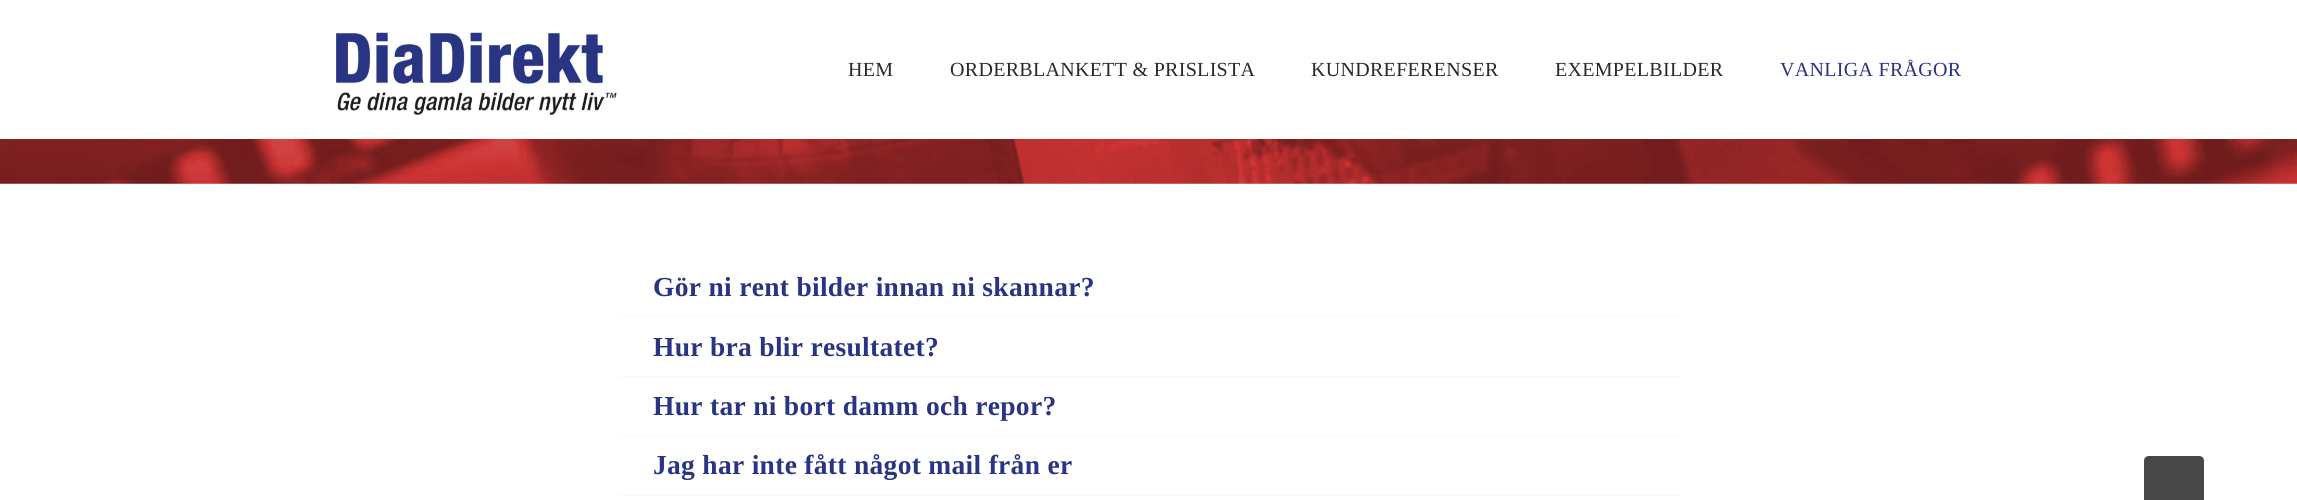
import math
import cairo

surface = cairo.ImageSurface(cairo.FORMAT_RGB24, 2297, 500)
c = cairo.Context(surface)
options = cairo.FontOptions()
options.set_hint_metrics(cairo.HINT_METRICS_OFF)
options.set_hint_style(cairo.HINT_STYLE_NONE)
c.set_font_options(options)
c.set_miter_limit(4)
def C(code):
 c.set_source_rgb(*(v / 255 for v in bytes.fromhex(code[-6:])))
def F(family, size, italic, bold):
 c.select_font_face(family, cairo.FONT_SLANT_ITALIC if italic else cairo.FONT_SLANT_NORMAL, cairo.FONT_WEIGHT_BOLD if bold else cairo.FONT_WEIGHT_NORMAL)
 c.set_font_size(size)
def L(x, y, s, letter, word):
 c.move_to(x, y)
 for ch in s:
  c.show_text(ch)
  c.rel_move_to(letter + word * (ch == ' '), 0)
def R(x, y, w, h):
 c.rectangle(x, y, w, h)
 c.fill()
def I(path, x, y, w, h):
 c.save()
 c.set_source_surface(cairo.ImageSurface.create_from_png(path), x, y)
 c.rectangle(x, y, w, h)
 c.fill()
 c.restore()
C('ffffff')
c.paint()
I('1.png',336,32,281,84)
F('Liberation Serif',20,0,0)
C('292929')
L(848,76,'HEM',.3,0)
L(950,76,'ORDERBLANKETT & PRISLISTA',.3,0)
L(1311,76,'KUNDREFERENSER',.3,0)
L(1555,76,'EXEMPELBILDER',.3,0)
C('293483')
L(1780,76,'VANLIGA FRÅGOR',.3,0)
I('2.png',0,139,2297,45)
C('f8f9fa')
R(618,316,1062,1)
F('Liberation Serif',27.5,0,1)
C('293483')
L(653,296,'Gör ni rent bilder innan ni skannar?',.3,0)
C('f8f9fa')
R(618,376,1062,1)
C('293483')
L(653,356,'Hur bra blir resultatet?',.3,0)
C('f8f9fa')
R(618,435,1062,1)
C('293483')
L(653,415,'Hur tar ni bort damm och repor?',.3,0)
C('f8f9fa')
R(618,495,1062,1)
C('293483')
L(653,474,'Jag har inte fått något mail från er',.3,0)
C('474747')
c.new_path()
c.move_to(2149,456)
c.line_to(2199,456)
c.curve_to(2202,456,2204,458,2204,461)
c.line_to(2204,500)
c.line_to(2144,500)
c.line_to(2144,461)
c.curve_to(2144,458,2146,456,2149,456)
c.close_path()
c.fill()
surface.write_to_png('o.png')
